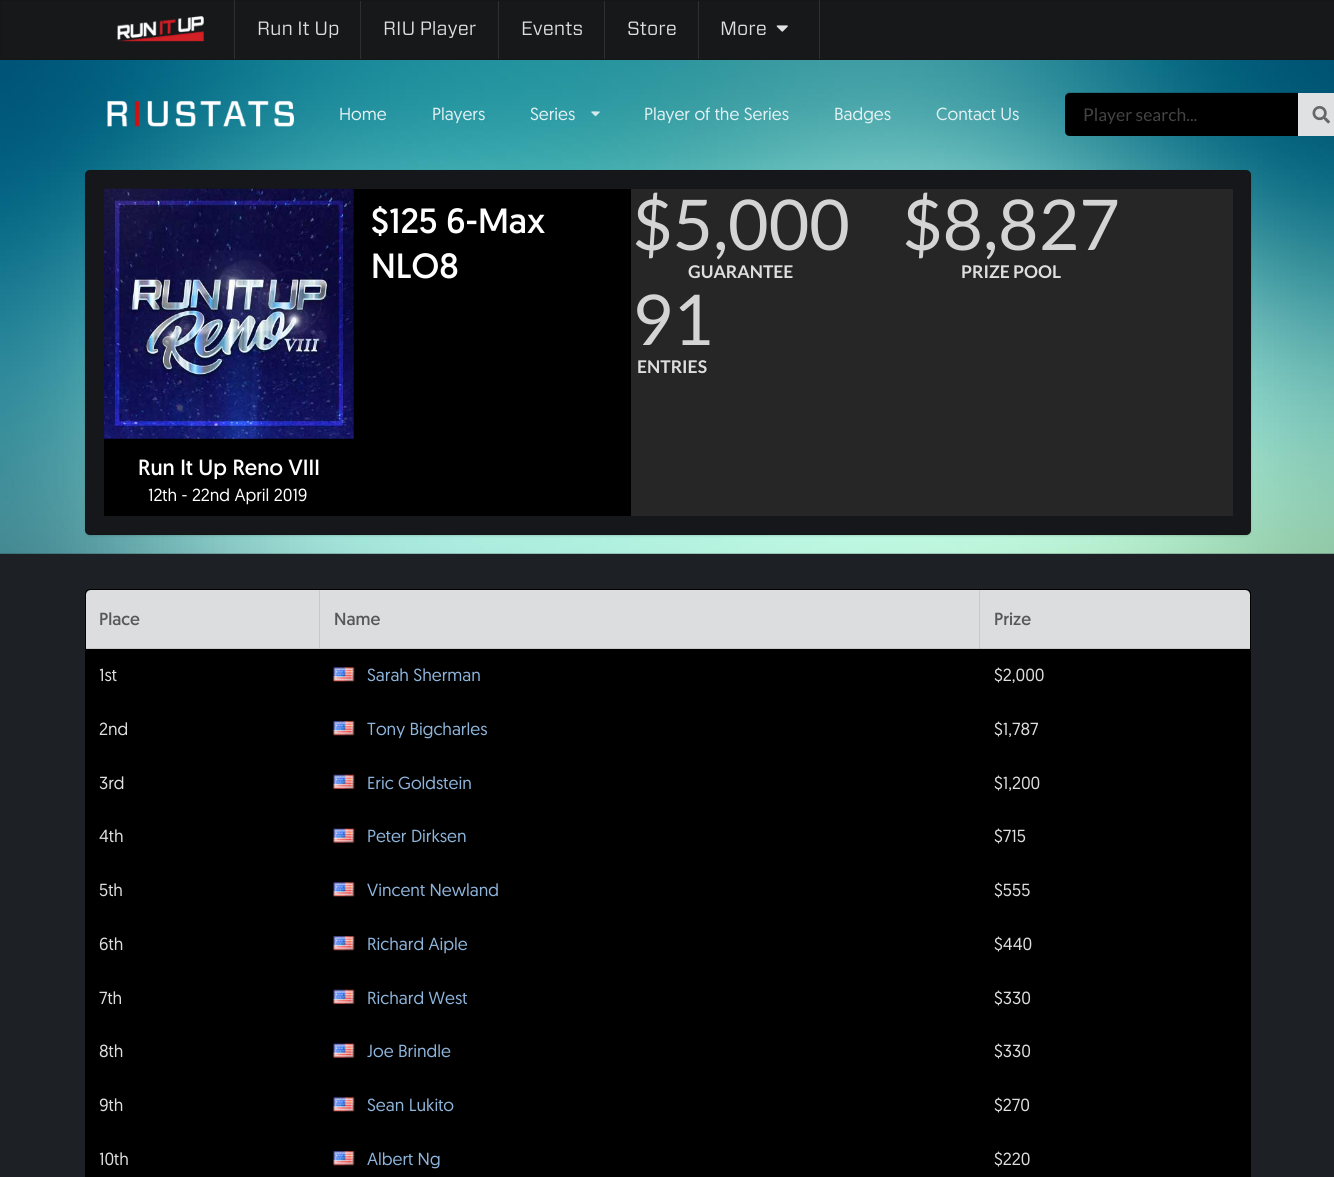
import math
import cairo

surface = cairo.ImageSurface(cairo.FORMAT_RGB24, 1334, 1177)
c = cairo.Context(surface)
options = cairo.FontOptions()
options.set_hint_metrics(cairo.HINT_METRICS_OFF)
options.set_hint_style(cairo.HINT_STYLE_NONE)
c.set_font_options(options)
c.set_miter_limit(4)
def C(code):
 c.set_source_rgb(*(v / 255 for v in bytes.fromhex(code[-6:])))
def F(family, size, italic, bold):
 c.select_font_face(family, cairo.FONT_SLANT_ITALIC if italic else cairo.FONT_SLANT_NORMAL, cairo.FONT_WEIGHT_BOLD if bold else cairo.FONT_WEIGHT_NORMAL)
 c.set_font_size(size)
def T(x, y, s):
 c.move_to(x, y)
 c.show_text(s)
def R(x, y, w, h):
 c.rectangle(x, y, w, h)
 c.fill()
def Q(x, y, w, h, r):
 c.new_sub_path()
 for i, (u, v) in enumerate([(x + w - r, y + h - r), (x + r, y + h - r), (x + r, y + r), (x + w - r, y + r)]):
  c.arc(u, v, r, i * math.pi / 2, (i + 1) * math.pi / 2)
 c.close_path()
def S(x, y, w, h, r, blur, alpha):
 c.push_group_with_content(cairo.CONTENT_ALPHA)
 c.set_operator(cairo.OPERATOR_SOURCE)
 for i in range(15, -16, -2):
  e = blur * i / 6
  if min(w, h) + 2 * e > 0:
   c.set_source_rgba(0, 0, 0, alpha * math.erfc((i - 1) / 8.5) / 2)
   Q(x - e, y - e, w + 2 * e, h + 2 * e, max(0, min(r + e + blur * .6, min(w, h) / 2 + e)))
   c.fill()
 c.mask(c.pop_group())
def I(path, x, y, w, h):
 c.save()
 c.set_source_surface(cairo.ImageSurface.create_from_png(path), x, y)
 c.rectangle(x, y, w, h)
 c.fill()
 c.restore()
C('1d2024')
c.paint()
C('16181a')
c.rectangle(.5,.5,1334,59)
c.fill_preserve()
C('141618')
c.set_line_width(1)
c.stroke()
I('1.png',117,16,87,26)
C('2d2f31')
R(234,0,1,59)
F('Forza',19.25,0,0)
C('dedede')
T(257,35,'Run It Up')
C('2d2f31')
R(360,1,1,58)
C('dedede')
T(383,35,'RIU Player')
C('2d2f31')
R(498,1,1,58)
C('dedede')
T(521,35,'Events')
C('2d2f31')
R(604,1,1,58)
C('dedede')
T(627,35,'Store')
C('2d2f31')
R(698,1,1,58)
C('dedede')
T(720,35,'More')
I('2.png',776,25,12,7)
C('2d2f31')
R(819,0,1,59)
I('6.png',0,60,1334,494)
I('3.png',107,100,187,27)
F('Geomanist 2',17.5,0,0)
C('e3f1f3')
T(339,120,'Home')
T(432,120,'Players')
T(530,120,'Series')
I('4.png',591,111,9,6)
T(644,120,'Player of the Series')
T(834,120,'Badges')
T(936,120,'Contact Us')
C('000000')
c.new_path()
c.move_to(1070,93)
c.line_to(1298,93)
c.line_to(1298,136)
c.line_to(1070,136)
c.curve_to(1067,136,1065,134,1065,131)
c.line_to(1065,98)
c.curve_to(1065,95,1067,93,1070,93)
c.close_path()
c.fill()
c.set_source_rgba(0.043,0.051,0.047,0.15)
c.new_path()
c.move_to(1070,94)
c.line_to(1067,95)
c.line_to(1066,94)
c.line_to(1068,92)
c.line_to(1298,92)
c.line_to(1296,94)
c.close_path()
c.fill()
c.new_path()
c.move_to(1297,136)
c.line_to(1070,136)
c.curve_to(1069,136,1067,136,1067,135)
c.line_to(1067,134)
c.curve_to(1068,135,1069,135,1070,135)
c.line_to(1296,135)
c.close_path()
c.fill()
c.new_path()
c.move_to(1065,98)
c.line_to(1065,131)
c.curve_to(1065,133,1066,134,1067,135)
c.line_to(1067,134)
c.curve_to(1067,133,1066,132,1066,131)
c.line_to(1066,98)
c.curve_to(1066,96,1067,95,1067,95)
c.line_to(1066,94)
c.curve_to(1066,95,1065,96,1065,98)
c.close_path()
c.fill()
F('Lato',17.5,0,0)
C('434343')
T(1083,121,'Player search...')
C('e0e1e2')
R(1298,93,36,43)
I('5.png',1312,106,18,18)
C('0b0d0c')
S(85,171,1166,365,5,1,.15)
C('15171a')
Q(85,170,1166,365,5)
c.fill()
Q(85.5,170.5,1165,364,4.5)
c.set_source_rgba(0.043,0.051,0.047,0.15)
c.stroke()
C('000000')
R(104,189,527,327)
F('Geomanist',35,0,0)
C('ffffff')
T(371,233,'$125 6-Max')
T(371,278,'NLO8')
C('262626')
R(631,189,602,327)
F('Lato',70,0,0)
C('d4d4d4')
T(632,250,'$5,000')
F('Lato',17.5,0,1)
C('dedede')
T(688,278,'GUARANTEE')
F('Lato',70,0,0)
C('d4d4d4')
T(902,250,'$8,827')
F('Lato',17.5,0,1)
C('dedede')
T(961,278,'PRIZE POOL')
F('Lato',70,0,0)
C('d4d4d4')
T(632,345,'91')
F('Lato',17.5,0,1)
C('dedede')
T(637,373,'ENTRIES')
I('7.png',103,188,251,251)
F('Geomanist',22,0,0)
C('ffffff')
T(138,475,'Run It Up Reno VIII')
F('Geomanist 2',17.5,0,0)
T(148,501,'12th - 22nd April 2019')
C('000000')
Q(85,589,1166,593,5)
c.fill()
C('dcddde')
c.new_path()
c.move_to(91,590)
c.line_to(319,590)
c.line_to(319,649)
c.line_to(86,649)
c.line_to(86,595)
c.curve_to(86,592,88,590,91,590)
c.close_path()
c.fill()
C('c7c8c9')
R(86,648,233,1)
F('Geomanist',17.5,0,0)
C('585859')
T(99,625,'Place')
C('dcddde')
R(319,590,660,59)
C('c7c8c9')
c.new_path()
c.move_to(979,649)
c.line_to(319,649)
c.line_to(320,648)
c.line_to(979,648)
c.close_path()
c.fill()
c.set_source_rgba(0.043,0.051,0.047,0.1)
c.new_path()
c.move_to(319,649)
c.line_to(319,590)
c.line_to(320,590)
c.line_to(320,648)
c.close_path()
c.fill()
C('585859')
T(334,625,'Name')
C('dcddde')
c.new_path()
c.move_to(979,590)
c.line_to(1245,590)
c.curve_to(1248,590,1250,592,1250,595)
c.line_to(1250,649)
c.line_to(979,649)
c.close_path()
c.fill()
C('c7c8c9')
R(979,590,1,59)
R(979,648,271,1)
C('b4b5b6')
R(979,648,1,1)
C('585859')
T(994,625,'Prize')
F('Geomanist 2',17.5,0,0)
C('dedede')
T(99,681,'1st')
I('8.png',333,667,22,15)
C('8eb5dc')
T(367,681,'Sarah Sherman')
C('dedede')
T(994,681,'$2,000')
T(99,735,'2nd')
I('9.png',333,721,22,15)
C('8eb5dc')
T(367,735,'Tony Bigcharles')
C('dedede')
T(994,735,'$1,787')
T(99,789,'3rd')
I('10.png',333,774,22,15)
C('8eb5dc')
T(367,789,'Eric Goldstein')
C('dedede')
T(994,789,'$1,200')
T(99,842,'4th')
I('11.png',333,828,22,15)
C('8eb5dc')
T(367,842,'Peter Dirksen')
C('dedede')
T(994,842,'$715')
T(99,896,'5th')
I('8.png',333,882,22,15)
C('8eb5dc')
T(367,896,'Vincent Newland')
C('dedede')
T(994,896,'$555')
T(99,950,'6th')
I('9.png',333,936,22,15)
C('8eb5dc')
T(367,950,'Richard Aiple')
C('dedede')
T(994,950,'$440')
T(99,1004,'7th')
I('10.png',333,989,22,15)
C('8eb5dc')
T(367,1004,'Richard West')
C('dedede')
T(994,1004,'$330')
T(99,1057,'8th')
I('11.png',333,1043,22,15)
C('8eb5dc')
T(367,1057,'Joe Brindle')
C('dedede')
T(994,1057,'$330')
T(99,1111,'9th')
I('8.png',333,1097,22,15)
C('8eb5dc')
T(367,1111,'Sean Lukito')
C('dedede')
T(994,1111,'$270')
T(99,1165,'10th')
I('9.png',333,1151,22,15)
C('8eb5dc')
T(367,1165,'Albert Ng')
C('dedede')
T(994,1165,'$220')
surface.write_to_png('o.png')
